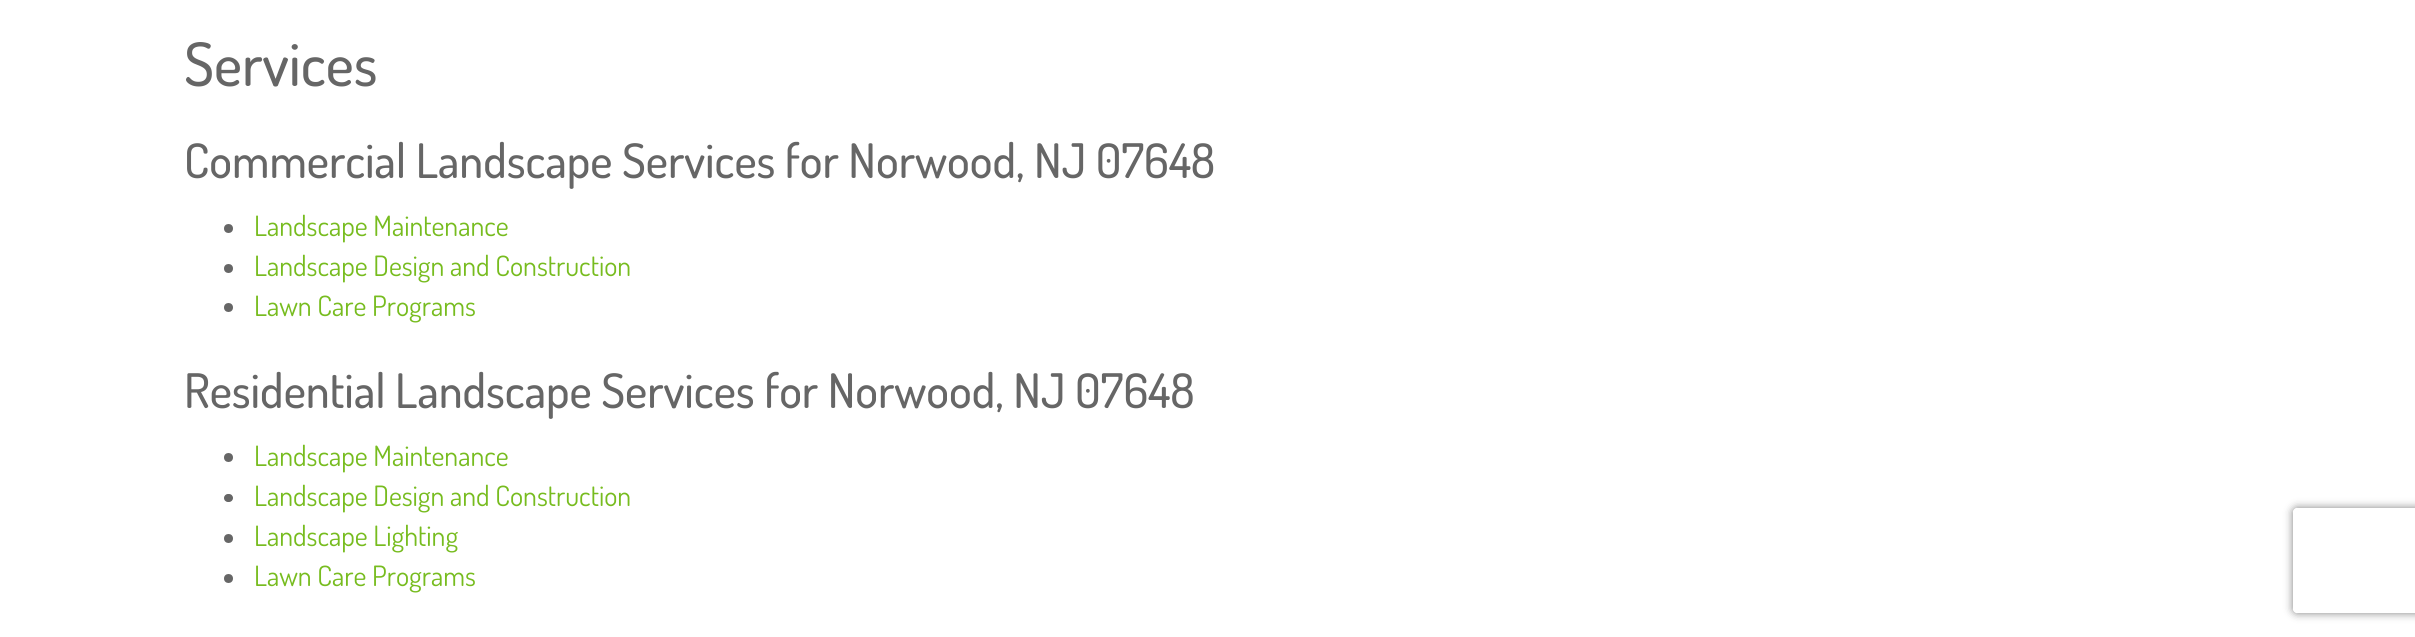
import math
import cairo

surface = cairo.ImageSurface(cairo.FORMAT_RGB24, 2415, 637)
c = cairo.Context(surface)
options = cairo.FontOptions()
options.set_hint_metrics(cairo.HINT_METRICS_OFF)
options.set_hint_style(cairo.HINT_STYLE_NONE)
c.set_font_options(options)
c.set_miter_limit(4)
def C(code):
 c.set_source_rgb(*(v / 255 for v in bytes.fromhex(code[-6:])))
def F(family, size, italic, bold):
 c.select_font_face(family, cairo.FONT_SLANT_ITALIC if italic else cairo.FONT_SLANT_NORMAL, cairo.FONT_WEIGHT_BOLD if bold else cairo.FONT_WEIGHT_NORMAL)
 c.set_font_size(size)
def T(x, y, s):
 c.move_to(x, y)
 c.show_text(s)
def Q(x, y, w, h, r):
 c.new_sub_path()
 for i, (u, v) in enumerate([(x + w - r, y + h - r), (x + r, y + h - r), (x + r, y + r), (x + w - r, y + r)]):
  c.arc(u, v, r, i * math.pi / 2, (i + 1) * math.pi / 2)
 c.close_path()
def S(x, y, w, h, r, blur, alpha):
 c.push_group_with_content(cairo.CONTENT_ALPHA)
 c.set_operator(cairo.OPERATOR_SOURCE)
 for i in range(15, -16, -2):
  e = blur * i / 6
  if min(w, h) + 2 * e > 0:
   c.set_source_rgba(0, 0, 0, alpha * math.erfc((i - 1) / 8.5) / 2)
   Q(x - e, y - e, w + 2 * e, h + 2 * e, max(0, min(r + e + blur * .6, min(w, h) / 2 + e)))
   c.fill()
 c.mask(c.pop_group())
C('ffffff')
c.paint()
F('Dosis Medium',60,0,0)
C('666666')
T(184,86,'Services')
F('Dosis Medium',47.6,0,0)
T(184,178,'Commercial Landscape Services for Norwood, NJ 07648')
c.new_path()
c.arc(228.5,228.5,4.5,0,2 * math.pi)
c.fill()
F('Dosis',28,0,0)
C('77bc1f')
T(254,236,'Landscape Maintenance')
C('666666')
c.new_path()
c.arc(228.5,268.5,4.5,0,2 * math.pi)
c.fill()
C('77bc1f')
T(254,276,'Landscape Design and Construction')
C('666666')
c.new_path()
c.arc(228.5,307.5,4.5,0,2 * math.pi)
c.fill()
C('77bc1f')
T(254,316,'Lawn Care Programs')
F('Dosis Medium',47.6,0,0)
C('666666')
T(184,408,'Residential Landscape Services for Norwood, NJ 07648')
c.new_path()
c.arc(228.5,457.5,4.5,0,2 * math.pi)
c.fill()
F('Dosis',28,0,0)
C('77bc1f')
T(254,466,'Landscape Maintenance')
C('666666')
Q(224,494,9,8,4)
c.fill()
C('77bc1f')
T(254,506,'Landscape Design and Construction')
C('666666')
c.new_path()
c.arc(228.5,538.5,4.5,0,2 * math.pi)
c.fill()
C('77bc1f')
T(254,546,'Landscape Lighting')
C('666666')
c.new_path()
c.arc(228.5,578.5,4.5,0,2 * math.pi)
c.fill()
C('77bc1f')
T(254,586,'Lawn Care Programs')
c.save()
c.set_fill_rule(cairo.FILL_RULE_EVEN_ODD)
c.new_path()
c.move_to(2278,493)
c.line_to(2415,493)
c.line_to(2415,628)
c.line_to(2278,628)
c.close_path()
c.move_to(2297,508)
c.line_to(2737,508)
c.curve_to(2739,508,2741,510,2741,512)
c.line_to(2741,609)
c.curve_to(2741,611,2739,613,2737,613)
c.line_to(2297,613)
c.curve_to(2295,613,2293,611,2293,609)
c.line_to(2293,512)
c.curve_to(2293,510,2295,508,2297,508)
c.close_path()
c.clip()
C('808080')
S(2293,508,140,105,4,4.5,1)
c.restore()
surface.write_to_png('o.png')
